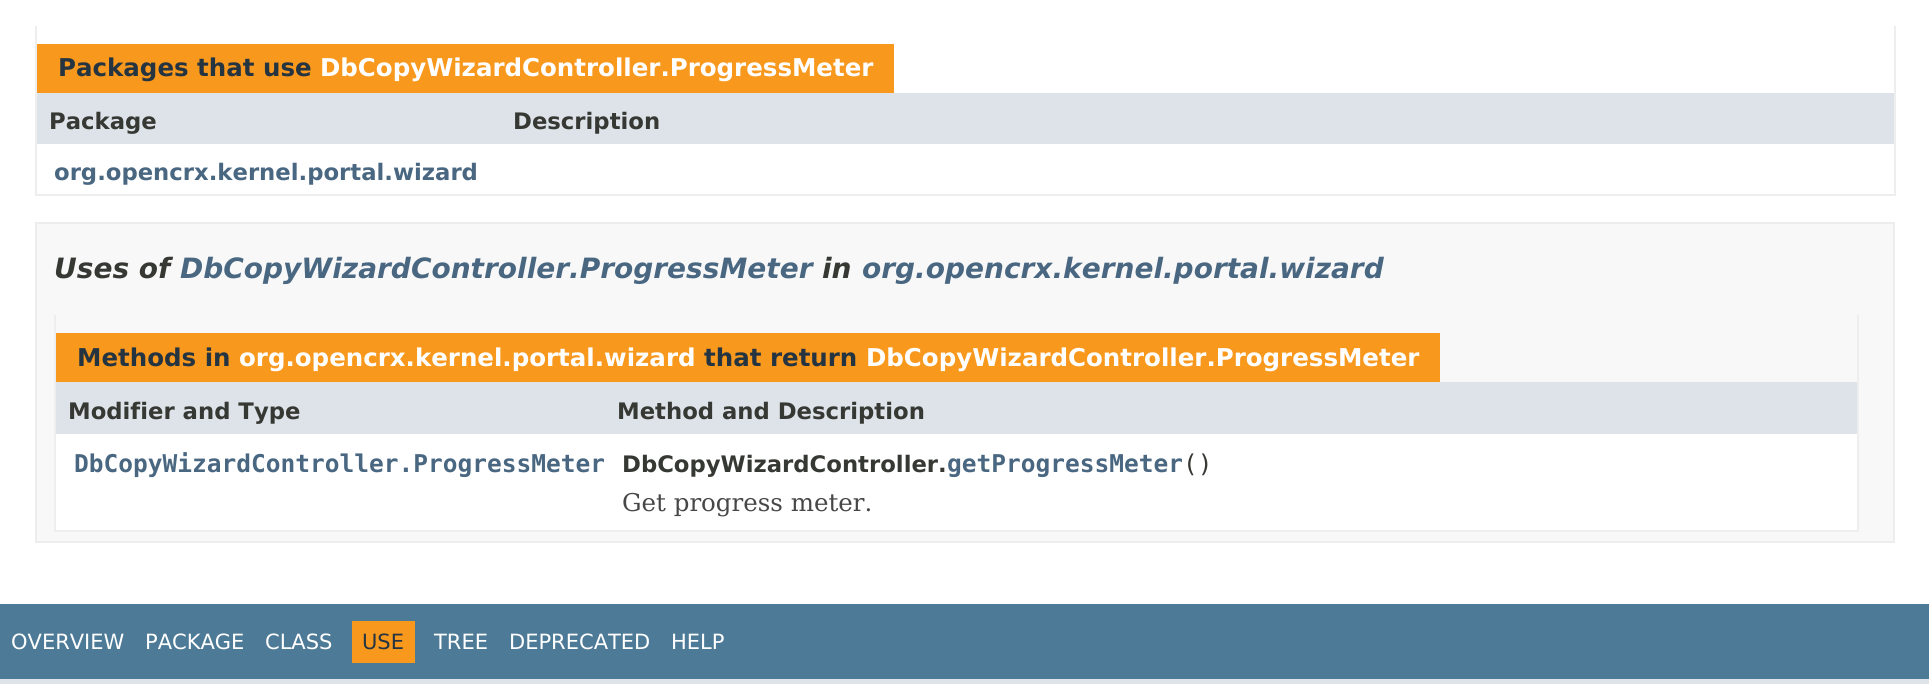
import math
import cairo

surface = cairo.ImageSurface(cairo.FORMAT_RGB24, 1929, 684)
c = cairo.Context(surface)
options = cairo.FontOptions()
options.set_hint_metrics(cairo.HINT_METRICS_OFF)
options.set_hint_style(cairo.HINT_STYLE_NONE)
c.set_font_options(options)
c.set_miter_limit(4)
def C(code):
 c.set_source_rgb(*(v / 255 for v in bytes.fromhex(code[-6:])))
def F(family, size, italic, bold):
 c.select_font_face(family, cairo.FONT_SLANT_ITALIC if italic else cairo.FONT_SLANT_NORMAL, cairo.FONT_WEIGHT_BOLD if bold else cairo.FONT_WEIGHT_NORMAL)
 c.set_font_size(size)
def T(x, y, s):
 c.move_to(x, y)
 c.show_text(s)
def R(x, y, w, h):
 c.rectangle(x, y, w, h)
 c.fill()
C('ffffff')
c.paint()
C('eeeeee')
R(1894,26,2,170)
R(35,194,1860,2)
R(35,26,2,170)
C('f8981d')
R(37,44,857,49)
F('DejaVu Sans',24.5,0,1)
C('253441')
T(58,76,'Packages that use')
C('ffffff')
T(320,76,'DbCopyWizardController.ProgressMeter')
C('dee3e9')
R(37,93,1857,51)
F('DejaVu Sans',22.75,0,1)
C('353833')
T(49,129,'Package')
T(513,129,'Description')
C('4a6782')
T(54,180,'org.opencrx.kernel.portal.wizard')
C('f8f8f8')
c.rectangle(36,223,1858,319)
c.fill_preserve()
C('ededed')
c.stroke()
F('DejaVu Sans',28,1,1)
C('353833')
T(54,278,'Uses of')
C('4a6782')
T(180,278,'DbCopyWizardController.ProgressMeter')
C('353833')
T(822,278,'in')
C('4a6782')
T(862,278,'org.opencrx.kernel.portal.wizard')
C('eeeeee')
R(1857,315,2,217)
R(54,530,1805,2)
R(54,315,2,217)
C('f8981d')
R(56,333,1384,49)
F('DejaVu Sans',24.5,0,1)
C('253441')
T(77,366,'Methods in')
C('ffffff')
T(239,366,'org.opencrx.kernel.portal.wizard')
C('253441')
T(704,366,'that return')
C('ffffff')
T(866,366,'DbCopyWizardController.ProgressMeter')
C('dee3e9')
R(56,382,1801,52)
F('DejaVu Sans',22.75,0,1)
C('353833')
T(68,419,'Modifier and Type')
T(617,419,'Method and Description')
C('ffffff')
R(56,434,1801,96)
F('DejaVu Sans Mono',24.5,0,1)
C('4a6782')
T(74,472,'DbCopyWizardController.ProgressMeter')
F('DejaVu Sans',22.75,0,1)
C('353833')
T(622,472,'DbCopyWizardController.')
F('DejaVu Sans Mono',24.5,0,1)
C('4a6782')
T(947,472,'getProgressMeter')
F('DejaVu Sans Mono',24.5,0,0)
C('353833')
T(1183,472,'()')
F('DejaVu Serif',24.5,0,0)
C('474747')
T(622,511,'Get progress meter.')
C('4d7a97')
R(0,604,1929,75)
F('DejaVu Sans',21,0,0)
C('ffffff')
T(11,649,'OVERVIEW')
T(145,649,'PACKAGE')
T(265,649,'CLASS')
C('f8981d')
R(352,621,63,42)
C('253441')
T(362,649,'USE')
C('ffffff')
T(434,649,'TREE')
T(509,649,'DEPRECATED')
T(671,649,'HELP')
C('dee3e9')
R(0,679,1929,5)
surface.write_to_png('o.png')
